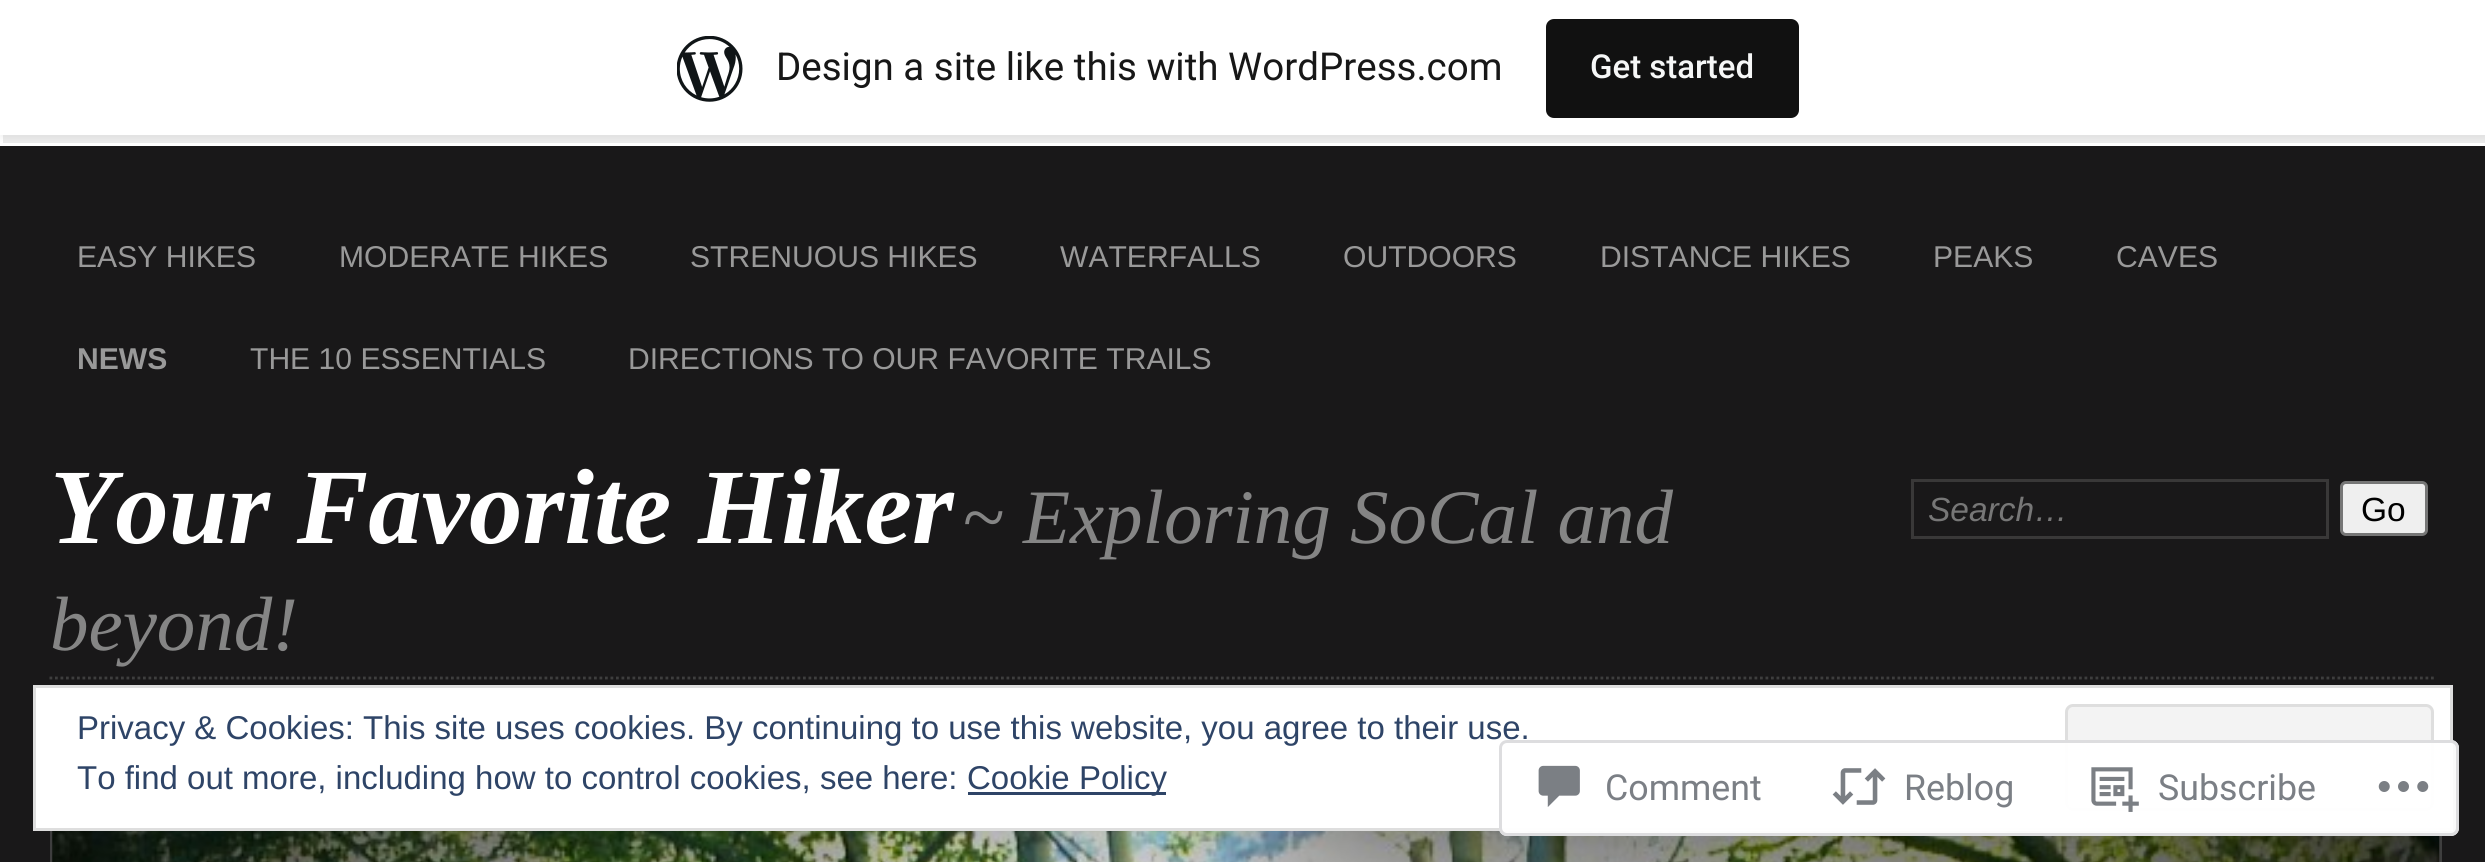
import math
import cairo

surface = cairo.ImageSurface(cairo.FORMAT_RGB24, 2485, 862)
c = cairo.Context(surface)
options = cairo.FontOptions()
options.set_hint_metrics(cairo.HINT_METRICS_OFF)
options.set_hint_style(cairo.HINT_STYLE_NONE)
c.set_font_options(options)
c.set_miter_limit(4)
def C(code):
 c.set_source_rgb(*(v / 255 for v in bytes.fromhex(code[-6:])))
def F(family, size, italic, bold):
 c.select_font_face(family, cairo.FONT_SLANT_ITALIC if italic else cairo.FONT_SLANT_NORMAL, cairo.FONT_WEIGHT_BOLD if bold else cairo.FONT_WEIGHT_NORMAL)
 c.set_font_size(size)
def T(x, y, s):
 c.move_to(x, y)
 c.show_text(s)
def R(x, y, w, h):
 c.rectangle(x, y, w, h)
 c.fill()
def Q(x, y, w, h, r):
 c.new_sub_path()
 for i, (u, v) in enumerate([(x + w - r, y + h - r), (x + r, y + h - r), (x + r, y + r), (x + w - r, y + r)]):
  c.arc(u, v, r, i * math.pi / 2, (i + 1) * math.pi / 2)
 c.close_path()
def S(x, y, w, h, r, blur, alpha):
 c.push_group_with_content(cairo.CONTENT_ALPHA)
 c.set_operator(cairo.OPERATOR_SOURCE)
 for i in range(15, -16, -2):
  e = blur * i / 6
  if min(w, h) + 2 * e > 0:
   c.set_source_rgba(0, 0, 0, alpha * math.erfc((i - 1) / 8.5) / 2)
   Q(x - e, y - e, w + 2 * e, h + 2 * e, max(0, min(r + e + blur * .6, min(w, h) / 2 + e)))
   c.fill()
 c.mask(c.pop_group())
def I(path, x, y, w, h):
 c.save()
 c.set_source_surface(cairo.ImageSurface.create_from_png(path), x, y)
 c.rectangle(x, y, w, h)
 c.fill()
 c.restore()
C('191819')
c.paint()
C('ffffff')
R(0,135,2485,11)
C('000000')
S(0,3,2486,135,0,3,.05)
c.set_source_rgba(0,0,0,0.08)
c.new_path()
c.move_to(3,135)
c.line_to(3,143)
c.line_to(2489,143)
c.line_to(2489,8)
c.line_to(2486,8)
c.line_to(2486,135)
c.close_path()
c.fill()
C('ffffff')
R(0,0,2485,135)
I('1.png',677,36,66,66)
F('Roboto',38.5,0,0)
C('171717')
T(776,80,'Design a site like this with WordPress.com')
C('111111')
Q(1546,19,253,99,8)
c.fill()
F('Roboto Medium',33,0,0)
C('f6f7f7')
T(1590,78,'Get started')
F('Liberation Sans',30.1,0,0)
C('999999')
T(77,267,'EASY HIKES')
T(339,267,'MODERATE HIKES')
T(690,267,'STRENUOUS HIKES')
T(1060,267,'WATERFALLS')
T(1343,267,'OUTDOORS')
T(1600,267,'DISTANCE HIKES')
T(1933,267,'PEAKS')
T(2116,267,'CAVES')
F('Liberation Sans',30.1,0,1)
T(77,369,'NEWS')
F('Liberation Sans',30.1,0,0)
T(250,369,'THE 10 ESSENTIALS')
T(628,369,'DIRECTIONS TO OUR FAVORITE TRAILS')
F('Liberation Serif',107,1,1)
C('ffffff')
T(50,543,'Your Favorite Hiker')
F('Liberation Serif',77,1,0)
C('858585')
T(962,543,'~ Exploring SoCal and')
T(50,650,'beyond!')
c.rectangle(1912.5,480.5,415,57)
C('393838')
c.set_line_width(3)
c.stroke()
F('Liberation Sans',33.5,1,0)
C('777777')
T(1928,521,'Search…')
C('efefef')
Q(2341.5,482.5,85,52,4.5)
c.fill_preserve()
C('767676')
c.stroke()
F('Liberation Sans',33.5,0,0)
C('000000')
T(2361,521,'Go')
c.new_path()
c.move_to(49.5,678)
c.line_to(2436.5,678)
C('3e3e3e')
c.set_line_width(2.8)
c.set_dash([2.75,2.75])
c.stroke()
c.rectangle(51.5,735.5,2389,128)
c.set_line_width(3)
c.set_dash([])
c.stroke()
I('2.png',52,831,2388,31)
C('ffffff')
c.rectangle(34.5,686.5,2417,143)
c.fill_preserve()
C('dedede')
c.stroke()
F('Liberation Sans',33,0,0)
C('2e4467')
T(77,739,'Privacy & Cookies: This site uses cookies. By continuing to use this website, you agree to their use.')
C('f3f3f3')
Q(2066.5,705.5,366,104,6.5)
c.fill_preserve()
C('dedede')
c.stroke()
c.set_source_rgba(1,1,1,0.98)
Q(1499,740,960,96,8)
c.fill()
Q(1500.5,741.5,957,93,6.5)
c.set_source_rgba(0.863,0.863,0.871,0.98)
c.stroke()
I('3.png',1538,765,42,42)
F('Roboto',35.75,0,0)
C('7b7f85')
T(1605,800,'Comment')
I('4.png',1832,768,54,37)
T(1904,800,'Reblog')
I('5.png',2091,767,48,45)
T(2158,800,'Subscribe')
I('6.png',2378,781,51,11)
F('Liberation Sans',33,0,0)
C('2e4467')
T(77,789,'To find out more, including how to control cookies, see here:')
R(968,792,198,3)
T(967,789,'Cookie Policy')
surface.write_to_png('o.png')
